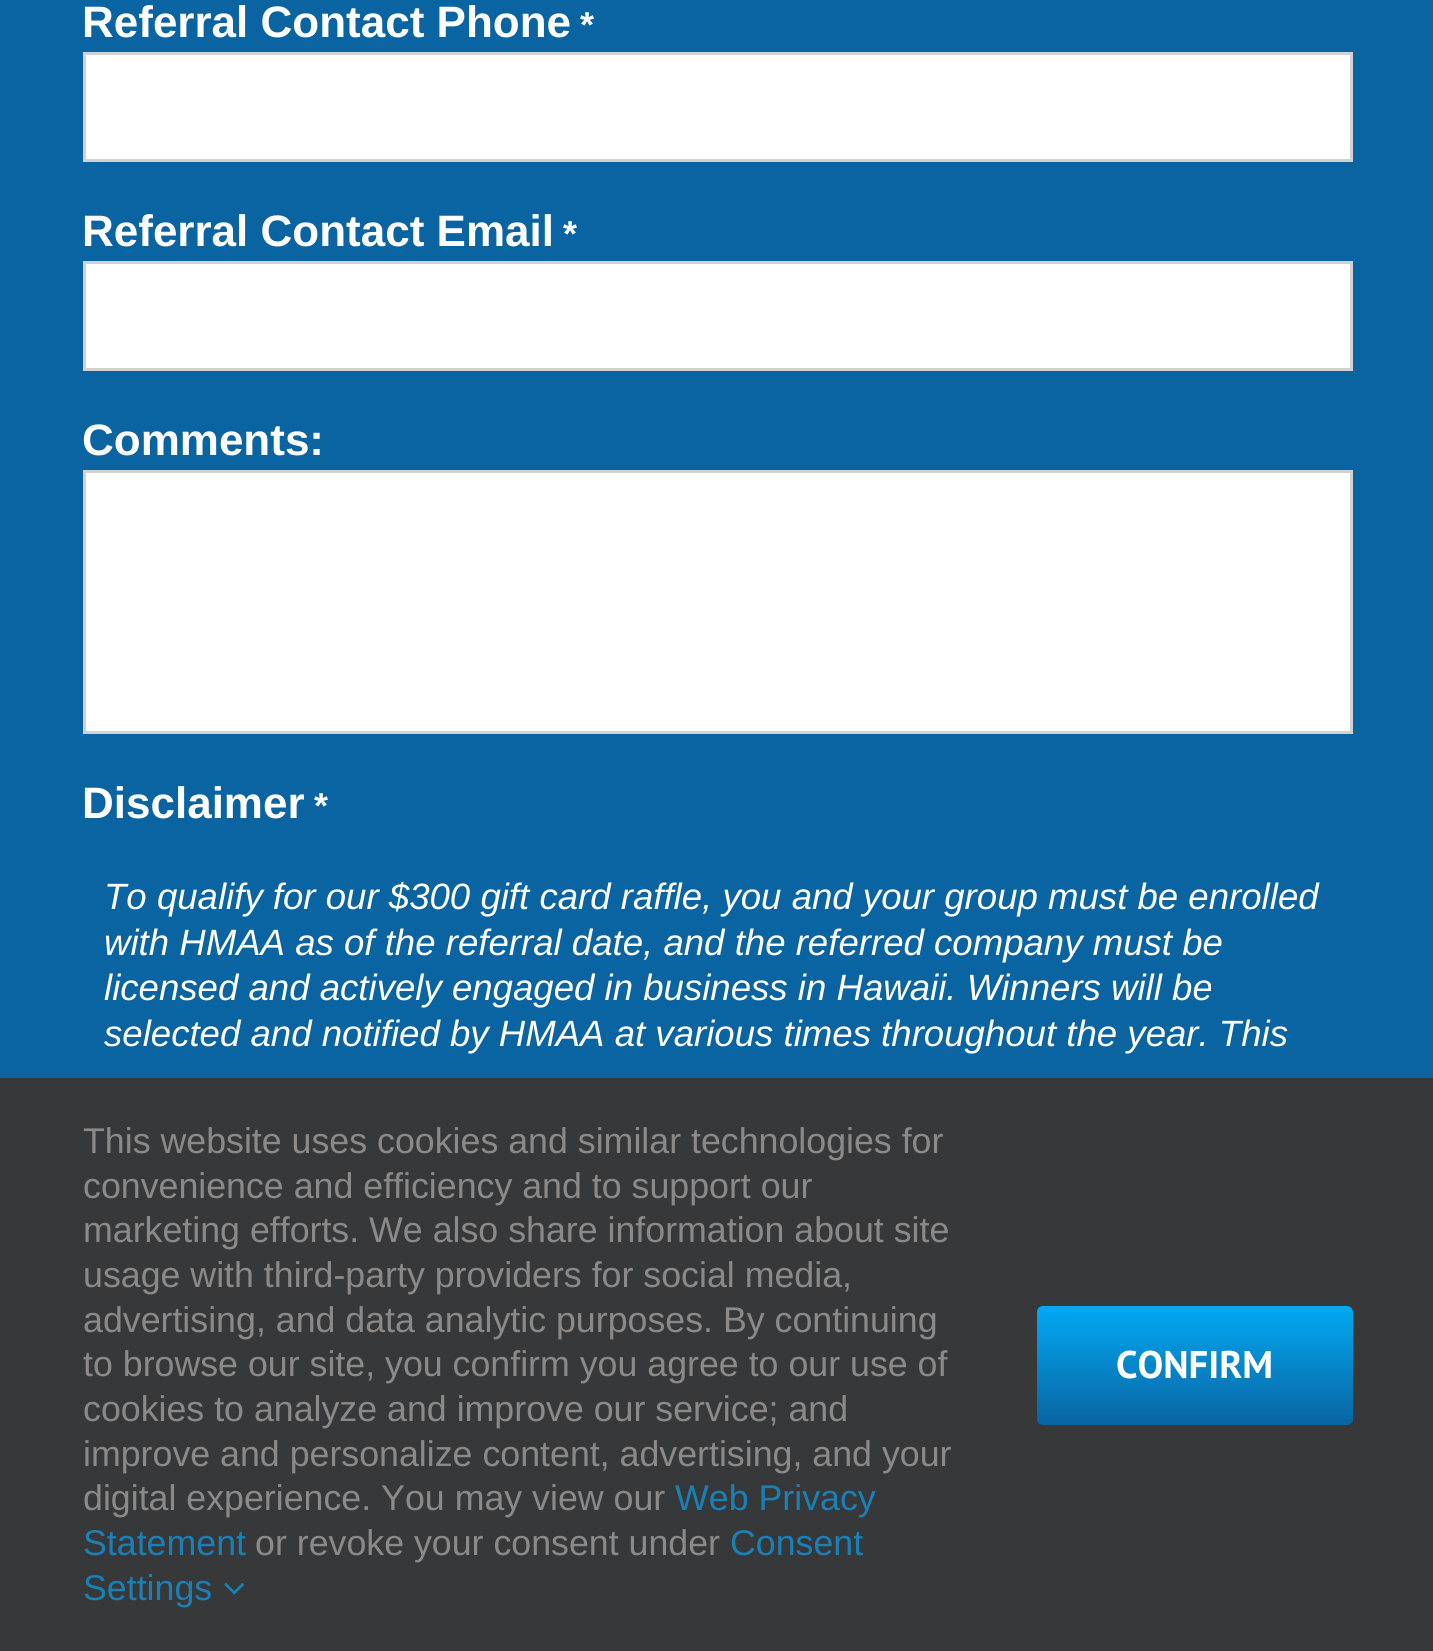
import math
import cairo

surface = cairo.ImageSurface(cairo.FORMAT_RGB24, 1433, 1651)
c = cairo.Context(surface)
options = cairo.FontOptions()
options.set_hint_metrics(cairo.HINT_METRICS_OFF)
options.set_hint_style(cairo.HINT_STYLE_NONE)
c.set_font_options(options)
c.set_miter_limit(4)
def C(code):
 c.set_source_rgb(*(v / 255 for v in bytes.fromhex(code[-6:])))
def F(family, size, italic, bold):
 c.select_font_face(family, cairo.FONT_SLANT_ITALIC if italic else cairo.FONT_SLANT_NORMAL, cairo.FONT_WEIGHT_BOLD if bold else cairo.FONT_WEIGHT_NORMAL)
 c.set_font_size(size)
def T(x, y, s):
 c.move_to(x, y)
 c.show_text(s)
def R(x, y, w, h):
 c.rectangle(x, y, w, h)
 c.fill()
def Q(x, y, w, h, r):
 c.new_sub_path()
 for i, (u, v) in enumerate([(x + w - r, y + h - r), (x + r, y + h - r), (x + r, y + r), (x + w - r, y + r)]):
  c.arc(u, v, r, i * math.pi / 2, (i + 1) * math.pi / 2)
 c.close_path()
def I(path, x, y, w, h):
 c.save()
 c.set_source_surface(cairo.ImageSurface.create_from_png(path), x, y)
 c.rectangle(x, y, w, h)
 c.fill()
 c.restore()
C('0a64a1')
c.paint()
F('Liberation Sans',44,0,1)
C('ffffff')
T(82,37,'Referral Contact Phone')
F('Liberation Sans',36,0,1)
T(580,37,'*')
c.rectangle(84.5,53.5,1267,107)
c.fill_preserve()
C('d2d2d2')
c.set_line_width(3)
c.stroke()
F('Liberation Sans',44,0,1)
C('ffffff')
T(82,246,'Referral Contact Email')
F('Liberation Sans',36,0,1)
T(563,246,'*')
c.rectangle(84.5,262.5,1267,107)
c.fill_preserve()
C('d2d2d2')
c.stroke()
F('Liberation Sans',44,0,1)
C('ffffff')
T(82,455,'Comments:')
c.rectangle(84.5,471.5,1267,261)
c.fill_preserve()
C('d2d2d2')
c.stroke()
C('ffffff')
T(82,818,'Disclaimer')
F('Liberation Sans',36,0,1)
T(314,818,'*')
F('Liberation Sans',36.6,1,0)
T(104,909,'To qualify for our $300 gift card raffle, you and your group must be enrolled')
T(104,955,'with HMAA as of the referral date, and the referred company must be')
T(104,1000,'licensed and actively engaged in business in Hawaii. Winners will be')
T(104,1046,'selected and notified by HMAA at various times throughout the year. This')
C('363839')
R(0,1078,1433,573)
F('Liberation Sans',35.75,0,0)
C('8c8989')
T(83,1153,'This website uses cookies and similar technologies for')
T(83,1198,'convenience and efficiency and to support our')
T(83,1242,'marketing efforts. We also share information about site')
T(83,1287,'usage with third-party providers for social media,')
T(83,1332,'advertising, and data analytic purposes. By continuing')
T(83,1376,'to browse our site, you confirm you agree to our use of')
T(83,1421,'cookies to analyze and improve our service; and')
T(83,1466,'improve and personalize content, advertising, and your')
T(83,1510,'digital experience. You may view our')
C('1a80b6')
T(675,1510,'Web Privacy')
T(83,1555,'Statement')
C('8c8989')
T(255,1555,'or revoke your consent under')
C('1a80b6')
T(730,1555,'Consent')
T(83,1600,'Settings')
I('1.png',224,1582,21,13)
gradient = cairo.LinearGradient(1195,1425,1195,1306)
gradient.add_color_stop_rgba(0,0.035,0.392,0.631,1)
gradient.add_color_stop_rgba(1,0.012,0.663,0.957,1)
c.set_source(gradient)
Q(1037,1306,316,119,6)
c.fill()
F('PT Sans',38.5,0,1)
C('ffffff')
T(1116,1378,'CONFIRM')
surface.write_to_png('o.png')
